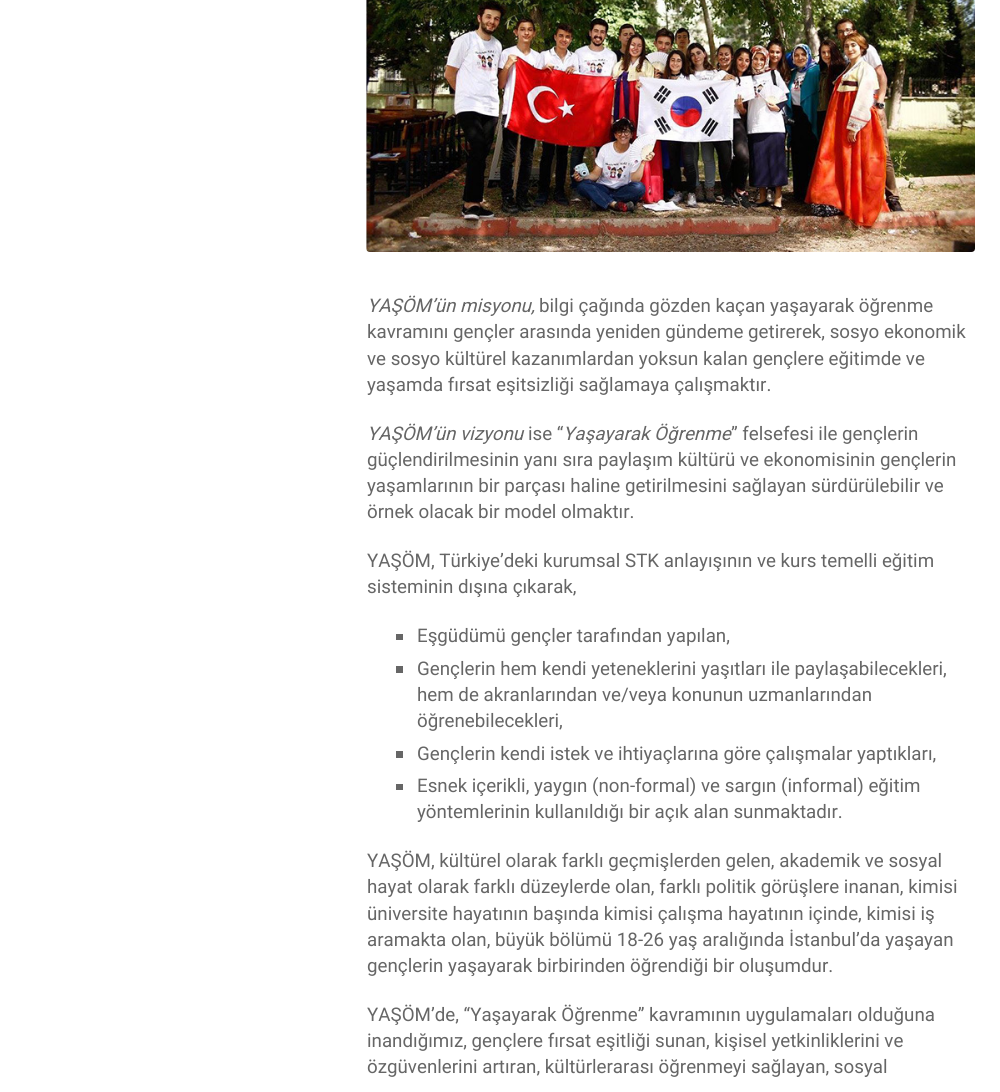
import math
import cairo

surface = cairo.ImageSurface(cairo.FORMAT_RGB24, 1000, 1092)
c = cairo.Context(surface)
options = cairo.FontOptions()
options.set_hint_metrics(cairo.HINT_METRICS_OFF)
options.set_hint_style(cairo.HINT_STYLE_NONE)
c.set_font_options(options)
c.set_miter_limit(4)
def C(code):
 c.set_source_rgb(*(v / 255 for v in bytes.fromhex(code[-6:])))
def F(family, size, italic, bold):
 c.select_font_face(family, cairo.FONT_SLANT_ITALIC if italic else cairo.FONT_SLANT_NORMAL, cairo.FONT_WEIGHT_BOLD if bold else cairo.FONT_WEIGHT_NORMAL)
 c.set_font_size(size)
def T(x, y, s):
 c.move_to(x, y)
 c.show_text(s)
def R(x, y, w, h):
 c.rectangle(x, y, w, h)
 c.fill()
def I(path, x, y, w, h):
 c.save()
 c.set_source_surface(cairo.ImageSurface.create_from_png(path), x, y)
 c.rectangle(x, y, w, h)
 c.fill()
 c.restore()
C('ffffff')
c.paint()
I('1.png',366,0,609,252)
F('Roboto',18.75,1,0)
C('666666')
T(367,312,'YAŞÖM’ün misyonu,')
F('Roboto',18.75,0,0)
T(539,312,'bilgi çağında gözden kaçan yaşayarak öğrenme')
T(367,338,'kavramını gençler arasında yeniden gündeme getirerek, sosyo ekonomik')
T(367,365,'ve sosyo kültürel kazanımlardan yoksun kalan gençlere eğitimde ve')
T(367,391,'yaşamda fırsat eşitsizliği sağlamaya çalışmaktır.')
F('Roboto',18.75,1,0)
T(367,440,'YAŞÖM’ün vizyonu')
F('Roboto',18.75,0,0)
T(528,440,'ise “')
F('Roboto',18.75,1,0)
T(563,440,'Yaşayarak Öğrenme')
F('Roboto',18.75,0,0)
T(731,440,'” felsefesi ile gençlerin')
T(367,466,'güçlendirilmesinin yanı sıra paylaşım kültürü ve ekonomisinin gençlerin')
T(367,492,'yaşamlarının bir parçası haline getirilmesini sağlayan sürdürülebilir ve')
T(367,518,'örnek olacak bir model olmaktır.')
T(367,567,'YAŞÖM, Türkiye’deki kurumsal STK anlayışının ve kurs temelli eğitim')
T(367,593,'sisteminin dışına çıkarak,')
R(396,634,7,6)
T(417,642,'Eşgüdümü gençler tarafından yapılan,')
R(396,666,7,7)
T(417,675,'Gençlerin hem kendi yeteneklerini yaşıtları ile paylaşabilecekleri,')
T(417,701,'hem de akranlarından ve/veya konunun uzmanlarından')
T(417,727,'öğrenebilecekleri,')
R(396,751,7,7)
T(417,760,'Gençlerin kendi istek ve ihtiyaçlarına göre çalışmalar yaptıkları,')
R(396,784,7,6)
T(417,792,'Esnek içerikli, yaygın (non-formal) ve sargın (informal) eğitim')
T(417,818,'yöntemlerinin kullanıldığı bir açık alan sunmaktadır.')
T(367,867,'YAŞÖM, kültürel olarak farklı geçmişlerden gelen, akademik ve sosyal')
T(367,893,'hayat olarak farklı düzeylerde olan, farklı politik görüşlere inanan, kimisi')
T(367,920,'üniversite hayatının başında kimisi çalışma hayatının içinde, kimisi iş')
T(367,946,'aramakta olan, büyük bölümü 18-26 yaş aralığında İstanbul’da yaşayan')
T(367,972,'gençlerin yaşayarak birbirinden öğrendiği bir oluşumdur.')
T(367,1021,'YAŞÖM’de, “Yaşayarak Öğrenme” kavramının uygulamaları olduğuna')
T(367,1047,'inandığımız, gençlere fırsat eşitliği sunan, kişisel yetkinliklerini ve')
T(367,1073,'özgüvenlerini artıran, kültürlerarası öğrenmeyi sağlayan, sosyal')
surface.write_to_png('o.png')
